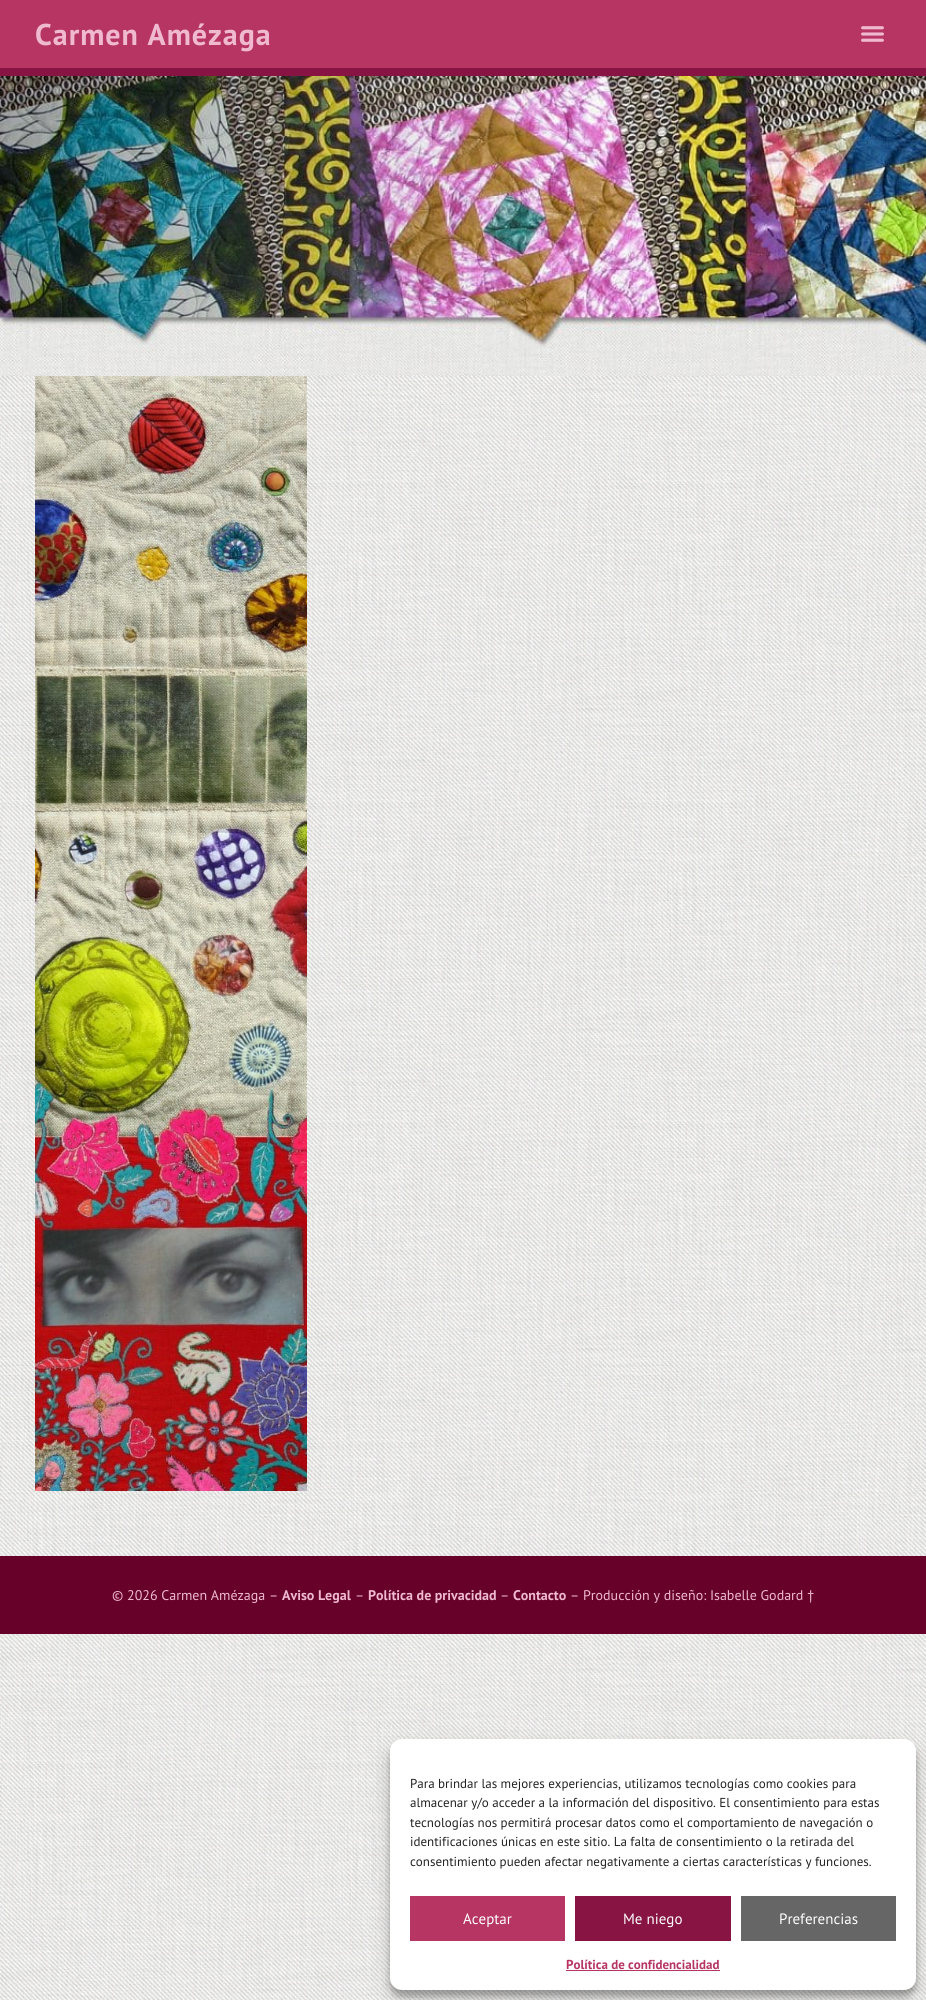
import math
import cairo

surface = cairo.ImageSurface(cairo.FORMAT_RGB24, 926, 2000)
c = cairo.Context(surface)
options = cairo.FontOptions()
options.set_hint_metrics(cairo.HINT_METRICS_OFF)
options.set_hint_style(cairo.HINT_STYLE_NONE)
c.set_font_options(options)
c.set_miter_limit(4)
def C(code):
 c.set_source_rgb(*(v / 255 for v in bytes.fromhex(code[-6:])))
def F(family, size, italic, bold):
 c.select_font_face(family, cairo.FONT_SLANT_ITALIC if italic else cairo.FONT_SLANT_NORMAL, cairo.FONT_WEIGHT_BOLD if bold else cairo.FONT_WEIGHT_NORMAL)
 c.set_font_size(size)
def T(x, y, s):
 c.move_to(x, y)
 c.show_text(s)
def L(x, y, s, letter, word):
 c.move_to(x, y)
 for ch in s:
  c.show_text(ch)
  c.rel_move_to(letter + word * (ch == ' '), 0)
def R(x, y, w, h):
 c.rectangle(x, y, w, h)
 c.fill()
def Q(x, y, w, h, r):
 c.new_sub_path()
 for i, (u, v) in enumerate([(x + w - r, y + h - r), (x + r, y + h - r), (x + r, y + r), (x + w - r, y + r)]):
  c.arc(u, v, r, i * math.pi / 2, (i + 1) * math.pi / 2)
 c.close_path()
def S(x, y, w, h, r, blur, alpha):
 c.push_group_with_content(cairo.CONTENT_ALPHA)
 c.set_operator(cairo.OPERATOR_SOURCE)
 for i in range(15, -16, -2):
  e = blur * i / 6
  if min(w, h) + 2 * e > 0:
   c.set_source_rgba(0, 0, 0, alpha * math.erfc((i - 1) / 8.5) / 2)
   Q(x - e, y - e, w + 2 * e, h + 2 * e, max(0, min(r + e + blur * .6, min(w, h) / 2 + e)))
   c.fill()
 c.mask(c.pop_group())
def I(path, x, y, w, h):
 c.save()
 c.set_source_surface(cairo.ImageSurface.create_from_png(path), x, y)
 c.rectangle(x, y, w, h)
 c.fill()
 c.restore()
C('ffffff')
c.paint()
I('1.png',0,376,926,1624)
C('b73563')
R(0,0,926,68)
C('871443')
R(0,68,926,8)
F('PT Sans',30,0,1)
C('efbad0')
L(35,45,'Carmen Amézaga',1,0)
I('2.png',861,26,23,16)
I('3.png',0,76,926,300)
I('4.png',35,376,272,1115)
C('67012a')
R(0,1556,926,78)
F('PT Sans',14,0,0)
C('efbad0')
T(112,1600,'© 2026 Carmen Amézaga –')
F('PT Sans',14,0,1)
T(282,1600,'Aviso Legal')
F('PT Sans',14,0,0)
T(355,1600,'–')
F('PT Sans',14,0,1)
T(368,1600,'Política de privacidad')
F('PT Sans',14,0,0)
T(500,1600,'–')
F('PT Sans',14,0,1)
T(513,1600,'Contacto')
F('PT Sans',14,0,0)
T(570,1600,'– Producción y diseño: Isabelle Godard †')
C('000000')
S(390,1745,526,251,12,3,.23)
S(390,1749,526,251,12,10,.19)
C('ffffff')
Q(390,1739,526,251,12)
c.fill()
F('PT Sans',13,0,0)
C('222222')
T(410,1788,'Para brindar las mejores experiencias, utilizamos tecnologías como cookies para')
T(410,1807,'almacenar y/o acceder a la información del dispositivo. El consentimiento para estas')
T(410,1827,'tecnologías nos permitirá procesar datos como el comportamiento de navegación o')
T(410,1846,'identificaciones únicas en este sitio. La falta de consentimiento o la retirada del')
T(410,1866,'consentimiento pueden afectar negativamente a ciertas características y funciones.')
C('b73563')
R(410,1896,155,45)
F('PT Sans',15,0,0)
C('ffffff')
T(463,1924,'Aceptar')
C('871443')
R(575,1896,156,45)
C('ffffff')
T(623,1924,'Me niego')
C('666666')
R(741,1896,155,45)
C('ffffff')
T(779,1924,'Preferencias')
F('PT Sans',13,0,1)
C('b73563')
T(566,1969,'Política de confidencialidad')
R(566,1970,154,1)
surface.write_to_png('o.png')
